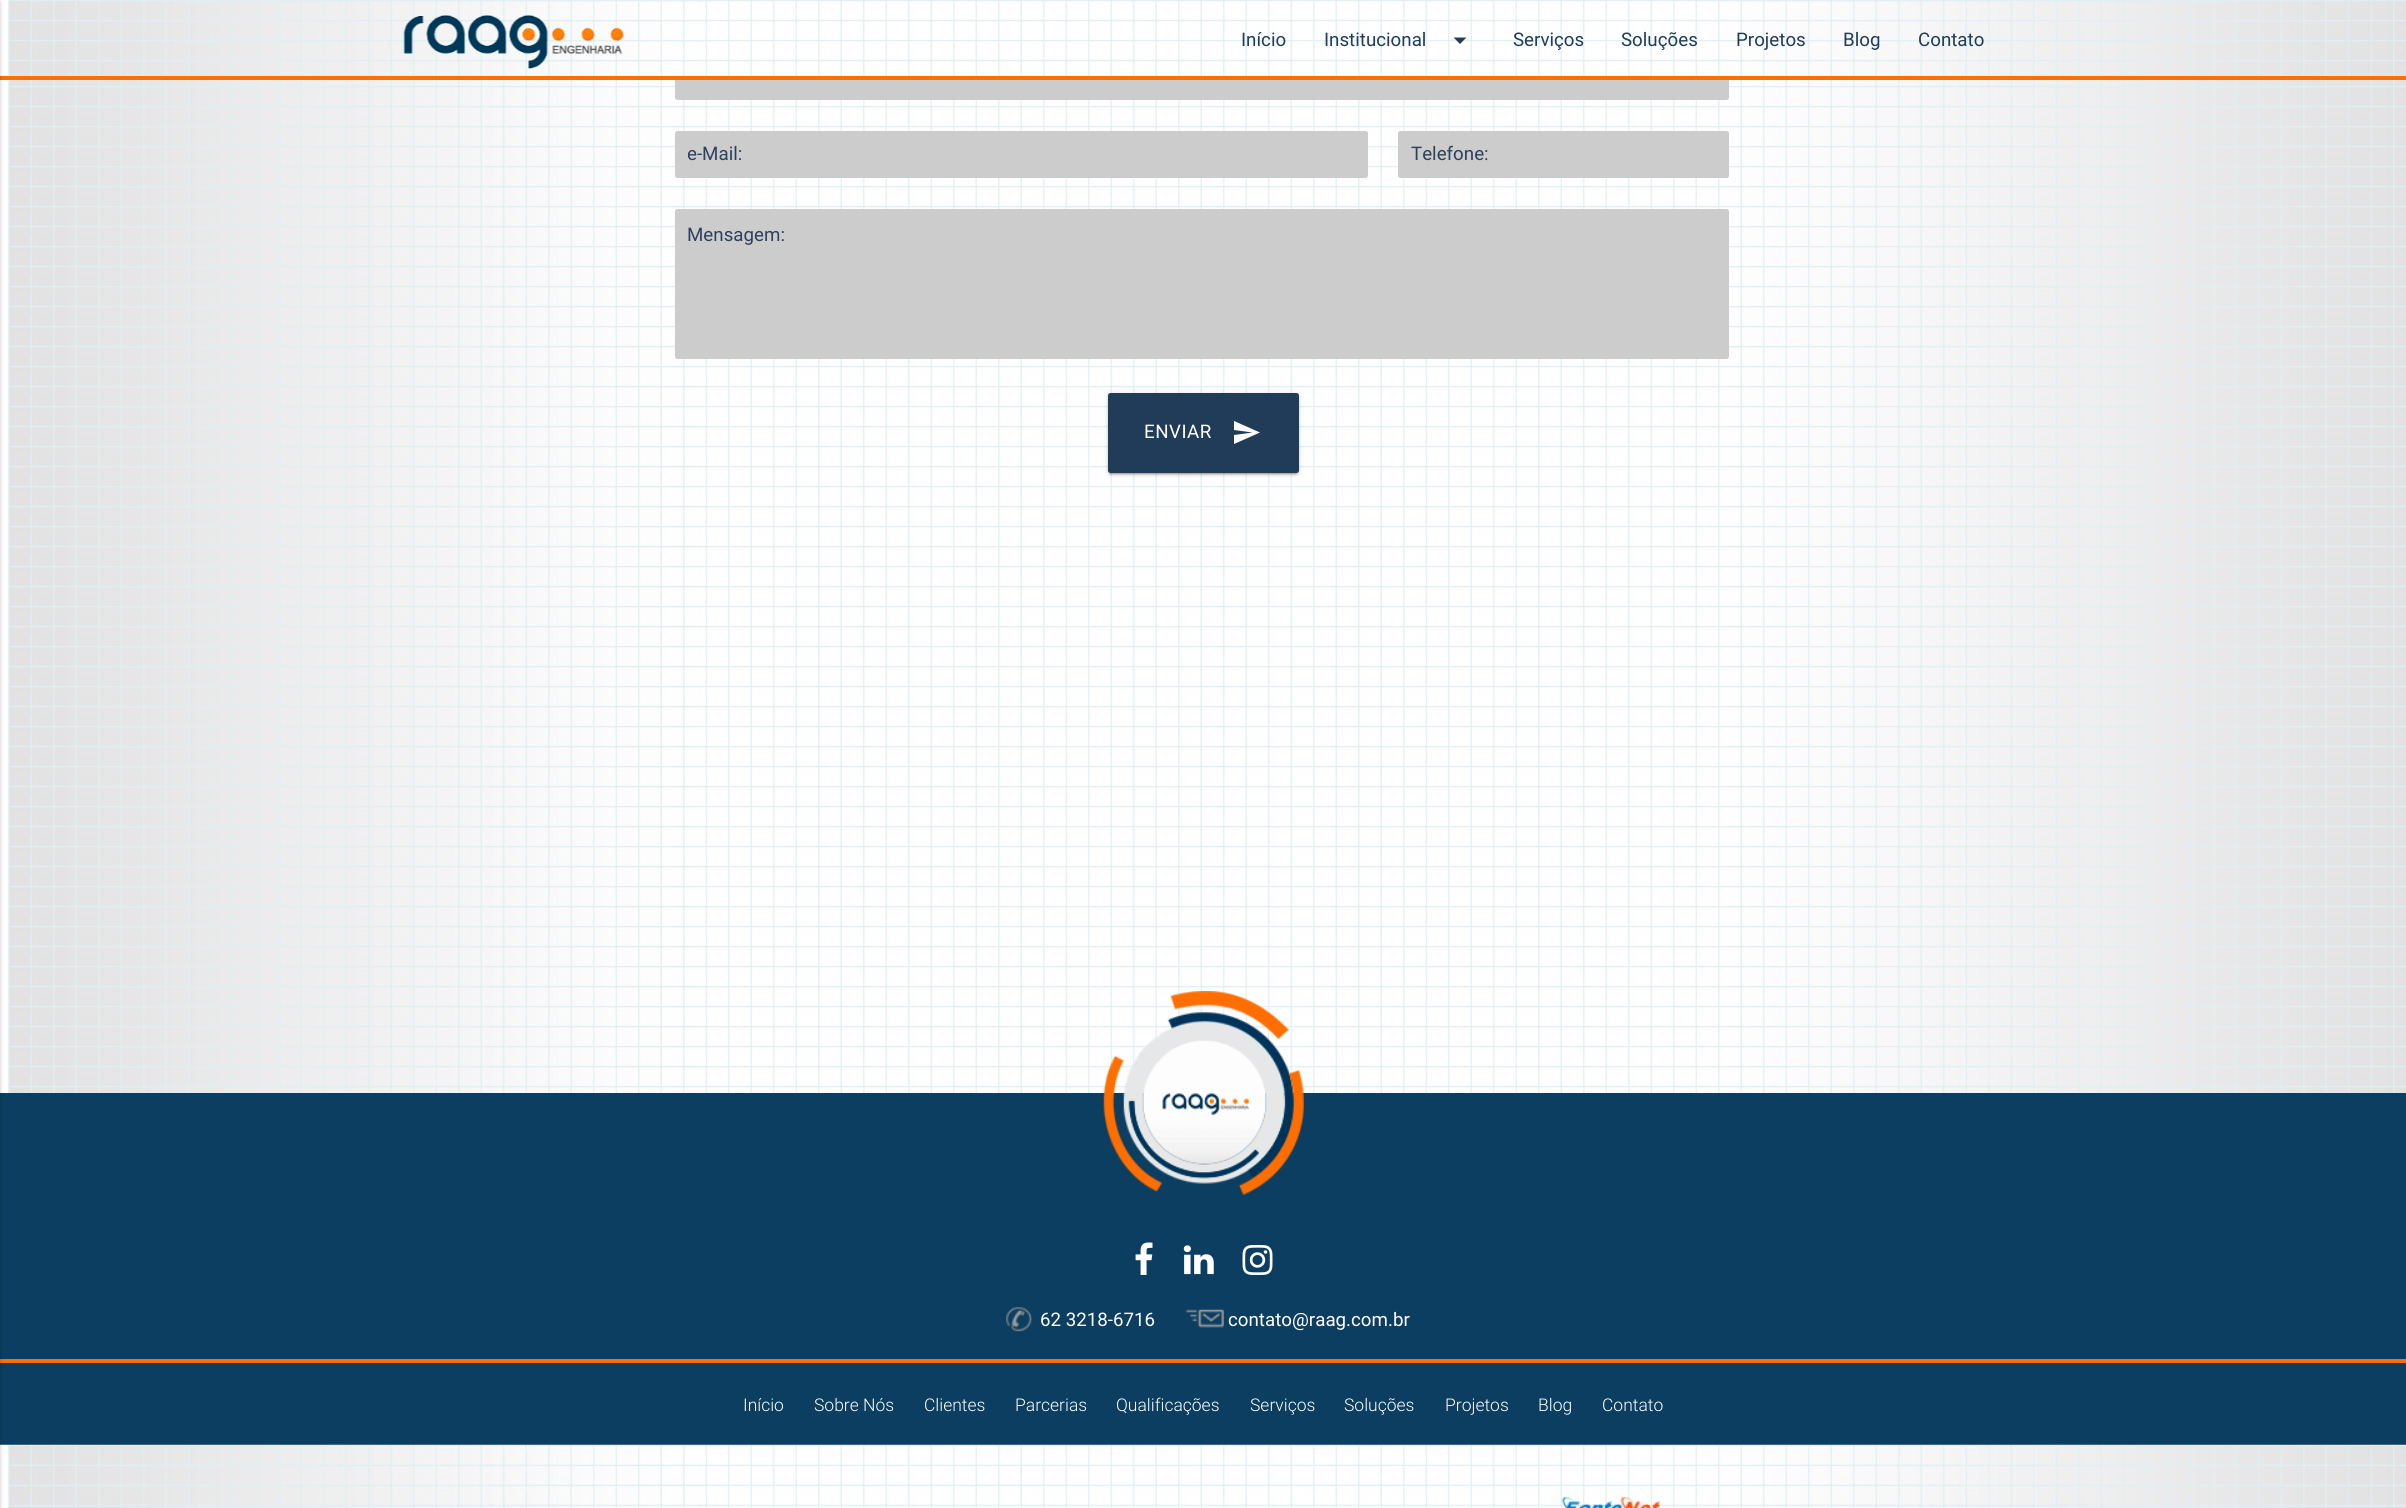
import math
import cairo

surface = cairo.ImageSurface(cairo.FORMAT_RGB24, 2406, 1508)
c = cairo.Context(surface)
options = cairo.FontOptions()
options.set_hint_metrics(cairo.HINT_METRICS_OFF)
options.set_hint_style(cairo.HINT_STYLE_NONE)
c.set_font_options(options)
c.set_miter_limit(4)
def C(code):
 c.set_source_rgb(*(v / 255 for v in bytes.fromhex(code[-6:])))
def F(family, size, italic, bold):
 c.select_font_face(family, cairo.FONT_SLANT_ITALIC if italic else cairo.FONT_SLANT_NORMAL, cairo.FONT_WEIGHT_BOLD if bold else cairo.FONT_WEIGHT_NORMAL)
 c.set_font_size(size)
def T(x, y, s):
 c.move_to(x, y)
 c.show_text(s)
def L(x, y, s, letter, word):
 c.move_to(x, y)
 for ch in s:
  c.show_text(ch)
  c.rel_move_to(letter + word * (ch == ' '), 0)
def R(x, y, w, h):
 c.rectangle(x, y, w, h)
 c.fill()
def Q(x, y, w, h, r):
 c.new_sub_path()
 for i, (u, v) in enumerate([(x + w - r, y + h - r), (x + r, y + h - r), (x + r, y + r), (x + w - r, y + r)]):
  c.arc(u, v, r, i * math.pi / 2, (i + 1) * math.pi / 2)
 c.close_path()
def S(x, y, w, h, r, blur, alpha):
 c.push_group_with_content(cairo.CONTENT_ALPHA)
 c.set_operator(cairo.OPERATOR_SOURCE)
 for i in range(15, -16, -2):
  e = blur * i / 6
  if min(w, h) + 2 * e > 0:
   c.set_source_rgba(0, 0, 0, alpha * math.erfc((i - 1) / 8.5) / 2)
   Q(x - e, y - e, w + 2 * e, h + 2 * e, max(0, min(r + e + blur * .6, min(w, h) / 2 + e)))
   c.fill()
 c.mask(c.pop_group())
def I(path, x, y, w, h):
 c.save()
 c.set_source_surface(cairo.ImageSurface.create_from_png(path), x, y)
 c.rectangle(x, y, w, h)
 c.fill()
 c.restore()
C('ffffff')
c.paint()
I('1.png',0,80,2406,1013)
C('cccccc')
Q(675,53,1054,47,2.5)
c.fill()
I('2.png',0,0,2406,76)
C('ff6e01')
R(0,76,2406,4)
C('0b3e60')
R(0,1093,2406,352)
C('ff6e01')
R(0,1359,2406,4)
I('10.png',0,1444,2406,64)
C('000000')
S(-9,1,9,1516,0,3,.12)
S(-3,3,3,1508,0,1,.14)
I('3.png',403,15,221,54)
F('Roboto',18.75,0,0)
C('213c58')
T(1241,46,'Início')
T(1324,46,'Institucional')
c.new_path()
c.move_to(1453.5,37.5)
c.line_to(1466.5,37.5)
c.line_to(1460,44)
c.close_path()
c.fill()
T(1513,46,'Serviços')
T(1621,46,'Soluções')
T(1736,46,'Projetos')
T(1843,46,'Blog')
T(1918,46,'Contato')
C('cccccc')
Q(675,131,693,47,2.5)
c.fill()
c.save()
c.rectangle(688,143,667,22)
c.clip()
C('2e405e')
T(687,160,'e-Mail:')
c.restore()
Q(1398,131,331,47,2.5)
c.fill()
C('2e405e')
T(1411,160,'Telefone:')
C('cccccc')
Q(675,209,1054,150,2.5)
c.fill()
C('2e405e')
T(687,241,'Mensagem:')
C('000000')
S(1110,399,186,75,0,.5,.2)
S(1108,394,191,80,2.5,3,.12)
S(1108,395,191,80,2.5,1,.14)
C('213c58')
Q(1108,393,191,80,2.5)
c.fill()
C('ffffff')
L(1144,438,'ENVIAR',.5,0)
c.new_path()
c.move_to(1234,444)
c.line_to(1234,435)
c.line_to(1252.5,432.5)
c.line_to(1234,430)
c.line_to(1234,421)
c.line_to(1260,432.5)
c.close_path()
c.fill()
I('4.png',1103,991,201,204)
I('5.png',1135,1242,18,33)
I('6.png',1183,1245,31,30)
I('7.png',1242,1245,31,30)
I('8.png',1006,1307,26,25)
T(1040,1326,'62 3218-6716')
I('9.png',1185,1309,39,19)
T(1228,1326,'contato@raag.com.br')
F('Roboto Light',17.5,0,0)
T(743,1411,'Início')
T(814,1411,'Sobre Nós')
T(924,1411,'Clientes')
T(1015,1411,'Parcerias')
T(1116,1411,'Qualificações')
T(1250,1411,'Serviços')
T(1344,1411,'Soluções')
T(1445,1411,'Projetos')
T(1538,1411,'Blog')
T(1602,1411,'Contato')
I('11.png',1562,1497,98,11)
surface.write_to_png('o.png')
